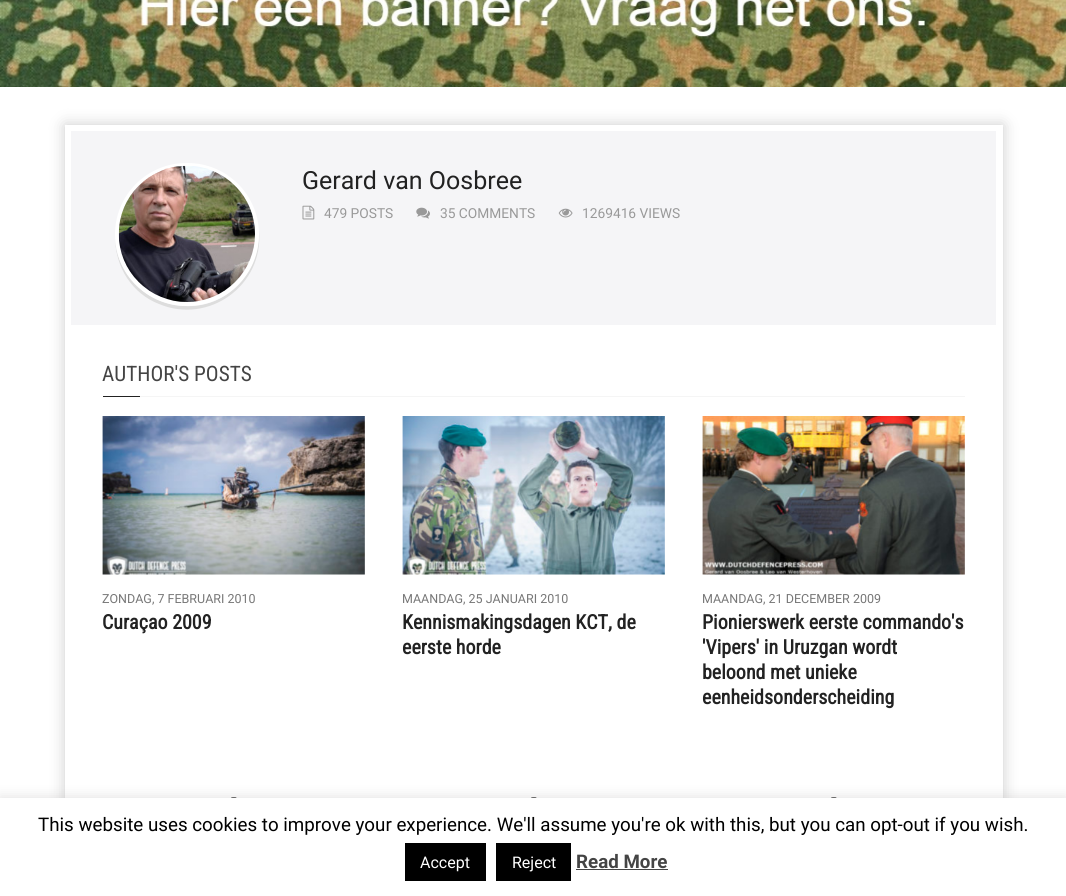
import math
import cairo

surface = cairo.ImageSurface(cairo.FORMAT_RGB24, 1066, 896)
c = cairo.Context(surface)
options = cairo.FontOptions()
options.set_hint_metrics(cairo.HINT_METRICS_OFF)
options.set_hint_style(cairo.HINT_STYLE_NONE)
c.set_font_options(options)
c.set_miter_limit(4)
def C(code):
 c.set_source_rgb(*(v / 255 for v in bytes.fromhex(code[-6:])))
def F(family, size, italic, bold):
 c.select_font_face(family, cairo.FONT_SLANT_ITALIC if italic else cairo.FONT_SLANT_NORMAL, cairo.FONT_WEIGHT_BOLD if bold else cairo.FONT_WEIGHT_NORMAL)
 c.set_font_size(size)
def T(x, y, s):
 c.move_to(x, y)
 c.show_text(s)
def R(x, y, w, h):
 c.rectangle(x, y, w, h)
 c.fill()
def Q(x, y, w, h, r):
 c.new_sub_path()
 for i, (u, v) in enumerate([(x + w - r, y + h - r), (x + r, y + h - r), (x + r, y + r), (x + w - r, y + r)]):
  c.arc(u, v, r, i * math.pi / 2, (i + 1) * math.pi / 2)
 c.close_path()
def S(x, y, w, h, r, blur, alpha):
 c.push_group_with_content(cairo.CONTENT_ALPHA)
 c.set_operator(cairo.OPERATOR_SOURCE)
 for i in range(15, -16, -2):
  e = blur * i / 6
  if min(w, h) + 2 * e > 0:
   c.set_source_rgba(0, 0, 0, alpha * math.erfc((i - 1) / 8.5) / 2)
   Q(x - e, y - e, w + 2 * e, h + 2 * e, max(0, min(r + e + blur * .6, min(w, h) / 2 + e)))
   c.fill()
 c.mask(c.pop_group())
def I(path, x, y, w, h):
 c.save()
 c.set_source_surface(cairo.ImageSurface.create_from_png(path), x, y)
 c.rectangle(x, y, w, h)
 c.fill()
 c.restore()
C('ffffff')
c.paint()
I('1.png',0,0,1066,87)
C('cccccc')
S(65,125,938,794,0,7.5,1)
C('ffffff')
R(65,125,938,673)
C('f5f5f7')
R(71,131,925,194)
C('dddddd')
c.new_path()
c.move_to(115,236)
c.curve_to(115,251,119,266,127,278)
c.curve_to(135,290,146,299,159,304)
c.curve_to(209,325,264,285,259,231)
c.curve_to(259,246,255,262,246,275)
c.curve_to(208,332,117,306,115,236)
c.close_path()
c.fill()
Q(117,165,140,139,69.5)
C('ffffff')
c.set_line_width(4)
c.stroke()
I('2.png',118,165,137,137)
F('Roboto',25,0,0)
C('222222')
T(302,189,'Gerard van Oosbree')
I('3.png',302,205,13,15)
F('Roboto',13.75,0,0)
C('999999')
T(324,218,'479 POSTS')
I('4.png',416,207,14,12)
T(440,218,'35 COMMENTS')
I('5.png',558,208,15,10)
T(582,218,'1269416 VIEWS')
C('f5f5f5')
R(140,396,825,1)
F('Roboto Condensed',21.25,0,0)
C('444444')
T(102,381,'AUTHOR\'S POSTS')
C('222222')
R(103,396,37,1)
I('6.png',102,416,263,159)
F('Roboto',12.5,0,0)
C('777777')
T(102,603,'ZONDAG, 7 FEBRUARI 2010')
F('Roboto Condensed',20,0,1)
C('222222')
T(102,629,'Curaçao 2009')
I('7.png',402,416,263,159)
F('Roboto',12.5,0,0)
C('777777')
T(402,603,'MAANDAG, 25 JANUARI 2010')
F('Roboto Condensed',20,0,1)
C('222222')
T(402,629,'Kennismakingsdagen KCT, de')
T(402,654,'eerste horde')
I('8.png',702,416,263,159)
F('Roboto',12.5,0,0)
C('777777')
T(702,603,'MAANDAG, 21 DECEMBER 2009')
F('Roboto Condensed',20,0,1)
C('222222')
T(702,629,'Pionierswerk eerste commando\'s')
T(702,654,'\'Vipers\' in Uruzgan wordt')
T(702,679,'beloond met unieke')
T(702,704,'eenheidsonderscheiding')
I('9.png',231,797,6,1)
I('10.png',531,797,6,1)
I('10.png',831,797,6,1)
C('acabab')
S(0,796,1066,99,0,6,.3)
C('ffffff')
R(0,798,1066,98)
F('Roboto',18.75,0,0)
C('000000')
T(38,831,'This website uses cookies to improve your experience. We\'ll assume you\'re ok with this, but you can opt-out if you wish.')
R(405,843,81,38)
F('Roboto',16,0,0)
C('ffffff')
T(420,868,'Accept')
C('000000')
R(496,843,75,38)
C('ffffff')
T(512,868,'Reject')
F('Roboto',18.75,0,1)
C('444444')
T(576,868,'Read More')
R(576,869,92,1)
surface.write_to_png('o.png')
